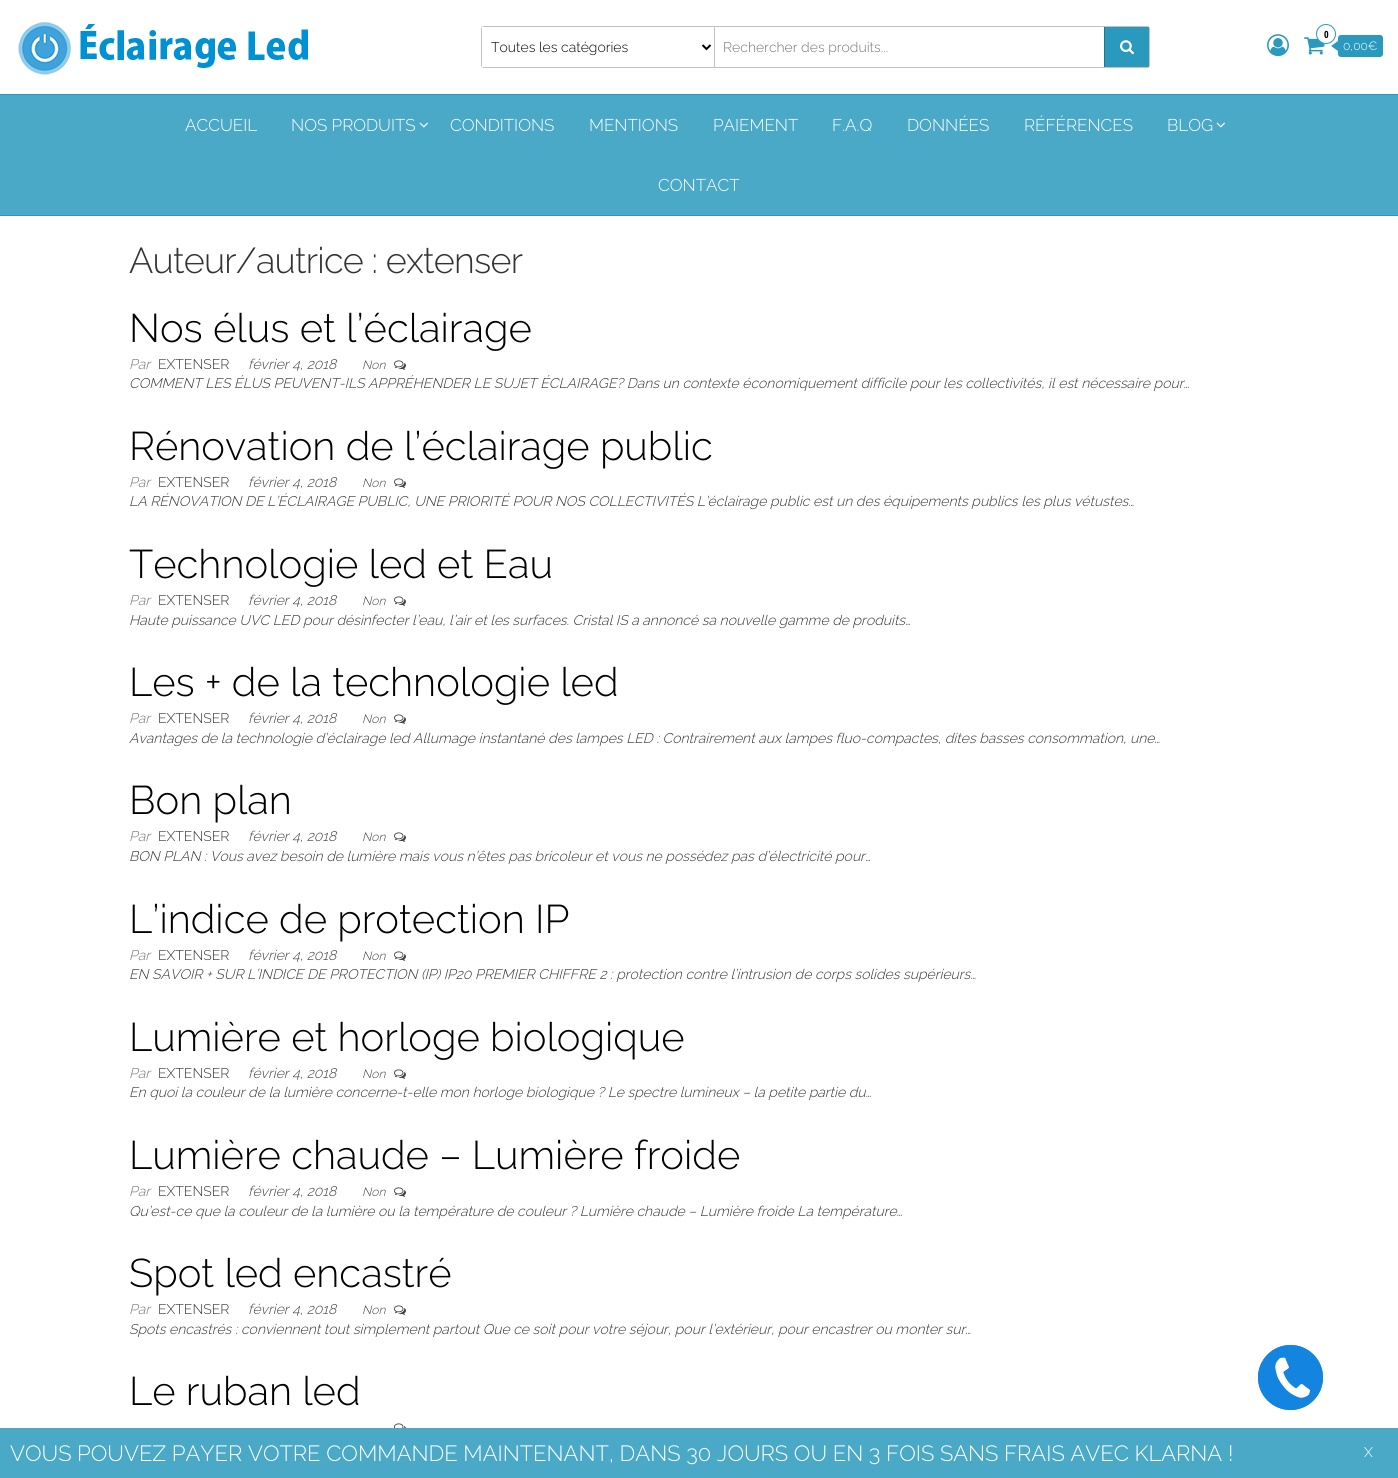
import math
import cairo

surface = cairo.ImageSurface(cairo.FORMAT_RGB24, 1398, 1478)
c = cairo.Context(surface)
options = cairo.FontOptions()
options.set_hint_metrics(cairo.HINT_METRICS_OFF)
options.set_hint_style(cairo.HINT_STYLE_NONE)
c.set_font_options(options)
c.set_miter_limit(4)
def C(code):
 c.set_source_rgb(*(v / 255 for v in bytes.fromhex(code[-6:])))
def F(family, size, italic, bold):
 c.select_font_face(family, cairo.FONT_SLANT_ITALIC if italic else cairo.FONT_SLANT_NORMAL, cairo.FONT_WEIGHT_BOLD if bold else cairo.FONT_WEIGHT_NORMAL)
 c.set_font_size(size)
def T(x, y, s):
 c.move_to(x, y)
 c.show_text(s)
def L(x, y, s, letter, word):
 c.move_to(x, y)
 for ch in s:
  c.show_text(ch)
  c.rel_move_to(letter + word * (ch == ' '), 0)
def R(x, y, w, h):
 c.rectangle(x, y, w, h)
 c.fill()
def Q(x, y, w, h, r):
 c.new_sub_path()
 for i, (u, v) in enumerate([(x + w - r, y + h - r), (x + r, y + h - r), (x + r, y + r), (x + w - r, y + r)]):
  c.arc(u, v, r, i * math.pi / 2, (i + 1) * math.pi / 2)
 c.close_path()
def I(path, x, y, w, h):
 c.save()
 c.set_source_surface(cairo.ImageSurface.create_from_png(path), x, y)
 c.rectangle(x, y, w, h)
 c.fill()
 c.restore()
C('ffffff')
c.paint()
I('1.png',18,22,291,53)
Q(481.5,26.5,668,41,2.5)
C('c2c2c2')
c.set_line_width(1)
c.stroke()
C('ffffff')
R(482,27,2,40)
C('c2c2c2')
R(714,27,1,40)
c.new_path()
c.move_to(702.5,45)
c.line_to(706.5,49)
c.line_to(710.5,45)
C('000000')
c.set_line_width(2)
c.stroke()
F('Raleway Light',14,0,0)
T(491,52,'Toutes les catégories')
C('757575')
T(723,52,'Rechercher des produits...')
C('2999bd')
R(1105,27,44,40)
C('1f7490')
R(1104,27,1,40)
I('2.png',1120,40,14,15)
I('3.png',1267,34,22,23)
I('4.png',1304,37,21,18)
C('ffffff')
c.arc(1326,34,9.5,0,2 * math.pi)
c.fill_preserve()
C('2999bd')
c.set_line_width(1)
c.stroke()
F('Open Sans Condensed',10,0,1)
C('000000')
T(1324,38,'0')
C('2999bd')
Q(1338,35,45,22,3)
c.fill()
c.new_path()
c.move_to(1338,41)
c.line_to(1338,51)
c.line_to(1331,46)
c.close_path()
c.fill()
F('Raleway Light',12,0,0)
C('ffffff')
T(1343,50,'0,00€')
C('4ba9c8')
R(0,95,1398,120)
C('2999bd')
R(0,94,1398,1)
R(0,215,1398,1)
F('Raleway Light',17,0,0)
C('ffffff')
T(185,131,'ACCUEIL')
T(291,131,'NOS PRODUITS')
I('5.png',419,122,9,6)
T(450,131,'CONDITIONS')
T(589,131,'MENTIONS')
T(713,131,'PAIEMENT')
T(832,131,'F.A.Q')
T(907,131,'DONNÉES')
T(1024,131,'RÉFÉRENCES')
T(1167,131,'BLOG')
I('5.png',1216,122,9,6)
T(658,191,'CONTACT')
F('Raleway Light',36,0,0)
C('333333')
L(129,273,'Auteur/autrice : extenser',-.75,0)
F('Raleway Light',40,0,0)
C('000000')
T(129,342,'Nos élus et l’éclairage')
F('Raleway Light',14,1,0)
C('757575')
T(129,369,'Par')
F('Raleway Light',14,0,0)
C('333333')
T(158,369,'EXTENSER')
F('Raleway Light',14,1,0)
C('404040')
T(248,369,'février 4, 2018')
F('Raleway Light',12,1,0)
T(362,369,'Non')
I('6.png',394,360,12,10)
F('Raleway Light',14,1,0)
C('333333')
T(129,388,'COMMENT LES ÉLUS PEUVENT-ILS APPRÉHENDER LE SUJET ÉCLAIRAGE? Dans un contexte économiquement difficile pour les collectivités, il est nécessaire pour…')
F('Raleway Light',40,0,0)
C('000000')
T(129,460,'Rénovation de l’éclairage public')
F('Raleway Light',14,1,0)
C('757575')
T(129,487,'Par')
F('Raleway Light',14,0,0)
C('333333')
T(158,487,'EXTENSER')
F('Raleway Light',14,1,0)
C('404040')
T(248,487,'février 4, 2018')
F('Raleway Light',12,1,0)
T(362,487,'Non')
I('6.png',394,478,12,10)
F('Raleway Light',14,1,0)
C('333333')
T(129,506,'LA RÉNOVATION DE L’ÉCLAIRAGE PUBLIC, UNE PRIORITÉ POUR NOS COLLECTIVITÉS L’éclairage public est un des équipements publics les plus vétustes…')
F('Raleway Light',40,0,0)
C('000000')
T(129,578,'Technologie led et Eau')
F('Raleway Light',14,1,0)
C('757575')
T(129,605,'Par')
F('Raleway Light',14,0,0)
C('333333')
T(158,605,'EXTENSER')
F('Raleway Light',14,1,0)
C('404040')
T(248,605,'février 4, 2018')
F('Raleway Light',12,1,0)
T(362,605,'Non')
I('6.png',394,596,12,10)
F('Raleway Light',14,1,0)
C('333333')
T(129,625,'Haute puissance UVC LED pour désinfecter l’eau, l’air et les surfaces. Cristal IS a annoncé sa nouvelle gamme de produits…')
F('Raleway Light',40,0,0)
C('000000')
T(129,696,'Les + de la technologie led')
F('Raleway Light',14,1,0)
C('757575')
T(129,723,'Par')
F('Raleway Light',14,0,0)
C('333333')
T(158,723,'EXTENSER')
F('Raleway Light',14,1,0)
C('404040')
T(248,723,'février 4, 2018')
F('Raleway Light',12,1,0)
T(362,723,'Non')
I('6.png',394,714,12,10)
F('Raleway Light',14,1,0)
C('333333')
T(129,743,'Avantages de la technologie d’éclairage led Allumage instantané des lampes LED : Contrairement aux lampes fluo-compactes, dites basses consommation, une…')
F('Raleway Light',40,0,0)
C('000000')
T(129,814,'Bon plan')
F('Raleway Light',14,1,0)
C('757575')
T(129,841,'Par')
F('Raleway Light',14,0,0)
C('333333')
T(158,841,'EXTENSER')
F('Raleway Light',14,1,0)
C('404040')
T(248,841,'février 4, 2018')
F('Raleway Light',12,1,0)
T(362,841,'Non')
I('6.png',394,832,12,10)
F('Raleway Light',14,1,0)
C('333333')
T(129,861,'BON PLAN : Vous avez besoin de lumière mais vous n’êtes pas bricoleur et vous ne possédez pas d’électricité pour…')
F('Raleway Light',40,0,0)
C('000000')
T(129,933,'L’indice de protection IP')
F('Raleway Light',14,1,0)
C('757575')
T(129,960,'Par')
F('Raleway Light',14,0,0)
C('333333')
T(158,960,'EXTENSER')
F('Raleway Light',14,1,0)
C('404040')
T(248,960,'février 4, 2018')
F('Raleway Light',12,1,0)
T(362,960,'Non')
I('6.png',394,951,12,10)
F('Raleway Light',14,1,0)
C('333333')
T(129,979,'EN SAVOIR + SUR L’INDICE DE PROTECTION (IP) IP20 PREMIER CHIFFRE 2 : protection contre l’intrusion de corps solides supérieurs…')
F('Raleway Light',40,0,0)
C('000000')
T(129,1051,'Lumière et horloge biologique')
F('Raleway Light',14,1,0)
C('757575')
T(129,1078,'Par')
F('Raleway Light',14,0,0)
C('333333')
T(158,1078,'EXTENSER')
F('Raleway Light',14,1,0)
C('404040')
T(248,1078,'février 4, 2018')
F('Raleway Light',12,1,0)
T(362,1078,'Non')
I('6.png',394,1069,12,10)
F('Raleway Light',14,1,0)
C('333333')
T(129,1097,'En quoi la couleur de la lumière concerne-t-elle mon horloge biologique ? Le spectre lumineux – la petite partie du…')
F('Raleway Light',40,0,0)
C('000000')
T(129,1169,'Lumière chaude – Lumière froide')
F('Raleway Light',14,1,0)
C('757575')
T(129,1196,'Par')
F('Raleway Light',14,0,0)
C('333333')
T(158,1196,'EXTENSER')
F('Raleway Light',14,1,0)
C('404040')
T(248,1196,'février 4, 2018')
F('Raleway Light',12,1,0)
T(362,1196,'Non')
I('6.png',394,1187,12,10)
F('Raleway Light',14,1,0)
C('333333')
T(129,1216,'Qu’est-ce que la couleur de la lumière ou la température de couleur ? Lumière chaude – Lumière froide La température…')
F('Raleway Light',40,0,0)
C('000000')
T(129,1287,'Spot led encastré')
F('Raleway Light',14,1,0)
C('757575')
T(129,1314,'Par')
F('Raleway Light',14,0,0)
C('333333')
T(158,1314,'EXTENSER')
F('Raleway Light',14,1,0)
C('404040')
T(248,1314,'février 4, 2018')
F('Raleway Light',12,1,0)
T(362,1314,'Non')
I('6.png',394,1305,12,10)
F('Raleway Light',14,1,0)
C('333333')
T(129,1334,'Spots encastrés : conviennent tout simplement partout Que ce soit pour votre séjour, pour l’extérieur, pour encastrer ou monter sur…')
F('Raleway Light',40,0,0)
C('000000')
T(129,1405,'Le ruban led')
I('7.png',394,1423,12,5)
c.arc(1290.5,1377.5,32,0,2 * math.pi)
C('1384df')
c.stroke()
c.arc(1290.5,1377.5,32.5,0,2 * math.pi)
c.fill()
I('8.png',1275,1357,35,41)
C('4ba9c8')
R(0,1428,1398,50)
F('Raleway Light',22,0,0)
C('ffffff')
T(10,1461,'VOUS POUVEZ PAYER VOTRE COMMANDE MAINTENANT, DANS 30 JOURS OU EN 3 FOIS SANS FRAIS AVEC KLARNA !')
F('Raleway Light',14,0,0)
T(1364,1457,'X')
surface.write_to_png('o.png')
